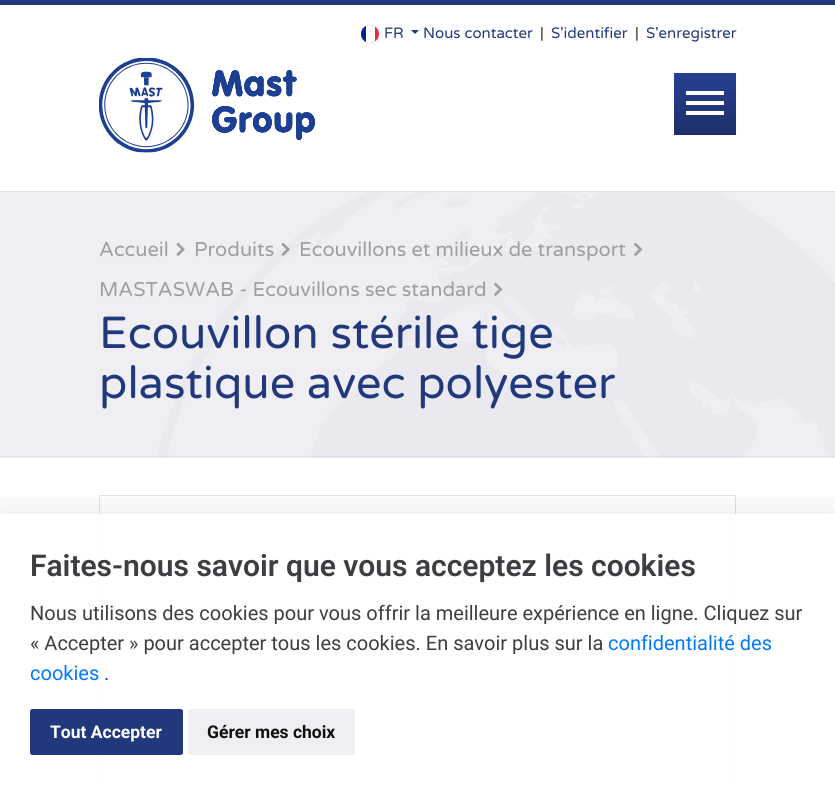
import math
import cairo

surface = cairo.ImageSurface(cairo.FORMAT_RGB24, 835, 785)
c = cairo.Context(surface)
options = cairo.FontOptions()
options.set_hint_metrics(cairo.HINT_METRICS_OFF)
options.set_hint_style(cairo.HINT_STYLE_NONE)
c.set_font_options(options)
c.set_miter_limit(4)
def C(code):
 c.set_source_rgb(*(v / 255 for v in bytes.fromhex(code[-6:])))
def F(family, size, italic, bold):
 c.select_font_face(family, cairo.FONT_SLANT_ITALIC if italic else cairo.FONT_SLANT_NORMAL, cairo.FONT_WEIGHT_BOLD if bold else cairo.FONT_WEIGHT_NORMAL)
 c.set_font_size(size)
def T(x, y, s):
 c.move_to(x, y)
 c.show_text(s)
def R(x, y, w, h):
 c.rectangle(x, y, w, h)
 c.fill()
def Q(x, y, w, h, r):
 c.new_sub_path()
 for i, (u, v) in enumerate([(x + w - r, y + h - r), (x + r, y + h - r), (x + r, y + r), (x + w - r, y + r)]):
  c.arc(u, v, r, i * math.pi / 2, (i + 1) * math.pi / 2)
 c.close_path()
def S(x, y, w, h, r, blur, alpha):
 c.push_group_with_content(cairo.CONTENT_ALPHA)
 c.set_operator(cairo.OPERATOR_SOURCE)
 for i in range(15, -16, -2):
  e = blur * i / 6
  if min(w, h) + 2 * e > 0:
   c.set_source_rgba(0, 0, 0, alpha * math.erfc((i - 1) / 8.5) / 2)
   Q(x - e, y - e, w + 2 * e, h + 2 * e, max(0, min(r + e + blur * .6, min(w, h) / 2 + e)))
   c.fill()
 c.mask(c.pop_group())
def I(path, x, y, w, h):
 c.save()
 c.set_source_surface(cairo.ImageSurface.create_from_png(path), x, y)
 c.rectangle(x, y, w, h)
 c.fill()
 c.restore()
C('ffffff')
c.paint()
C('22387d')
R(0,0,835,5)
C('ed2939')
c.arc(370,34,9,0,2 * math.pi)
c.fill()
c.save()
Q(361,25,18,18,9)
c.clip()
C('ffffff')
c.new_path()
c.move_to(370,25)
c.line_to(375,25)
c.line_to(375,43)
c.line_to(370,43)
c.curve_to(365,43,361,39,361,34)
c.curve_to(361,29,365,25,370,25)
c.close_path()
c.fill()
C('002395')
R(361,25,5,18)
c.restore()
F('Varela Round',15,0,0)
C('22387d')
T(384,38,'FR')
c.new_path()
c.move_to(411,30)
c.line_to(419,30)
c.line_to(415,34)
c.close_path()
c.fill()
T(423,38,'Nous contacter')
C('212529')
T(540,38,'|')
C('22387d')
T(551,38,'S\'identifier')
C('212529')
T(635,38,'|')
C('22387d')
T(646,38,'S\'enregistrer')
I('1.png',99,58,216,95)
gradient = cairo.LinearGradient(705,73,705,135)
gradient.add_color_stop_rgba(0,0.153,0.255,0.569,1)
gradient.add_color_stop_rgba(1,0.114,0.184,0.412,1)
c.set_source(gradient)
R(674,73,62,62)
C('ffffff')
R(686,91,38,4)
R(686,101,38,4)
R(686,111,38,4)
C('eeeef3')
R(0,192,835,266)
I('2.png',157,192,678,266)
C('e0e0e9')
R(0,191,835,1)
R(0,456,835,1)
F('Varela Round',20,0,0)
C('9e9ea0')
T(99,256,'Accueil')
I('3.png',176,243,9,13)
T(194,256,'Produits')
I('4.png',281,243,9,13)
T(299,256,'Ecouvillons et milieux de transport')
I('5.png',634,243,9,13)
T(99,296,'MASTASWAB - Ecouvillons sec standard')
I('5.png',494,283,9,13)
F('Varela Round',45,0,0)
C('22387d')
T(99,348,'Ecouvillon stérile tige')
T(99,398,'plastique avec polyester')
c.rectangle(99.5,495.5,636,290)
C('e0e0e9')
c.set_line_width(1)
c.stroke()
c.save()
c.rectangle(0,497,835,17)
c.clip()
C('000000')
S(0,514,835,271,0,20,.1)
c.restore()
c.set_source_rgba(1,1,1,0.9)
R(99,514,637,271)
F('Roboto SemiBold',30,0,0)
C('3d3e42')
T(30,576,'Faites-nous savoir que vous acceptez les cookies')
F('Roboto',20,0,0)
T(30,620,'Nous utilisons des cookies pour vous offrir la meilleure expérience en ligne. Cliquez sur')
T(30,650,'« Accepter » pour accepter tous les cookies. En savoir plus sur la')
C('007bff')
T(608,650,'confidentialité des')
T(30,680,'cookies')
C('3d3e42')
T(104,680,'.')
C('22387d')
Q(30,709,153,46,2.5)
c.fill()
F('Roboto',17.5,0,1)
C('ffffff')
T(50,738,'Tout Accepter')
C('eeeef3')
Q(188,709,167,46,2.5)
c.fill()
C('111111')
T(207,738,'Gérer mes choix')
surface.write_to_png('o.png')
